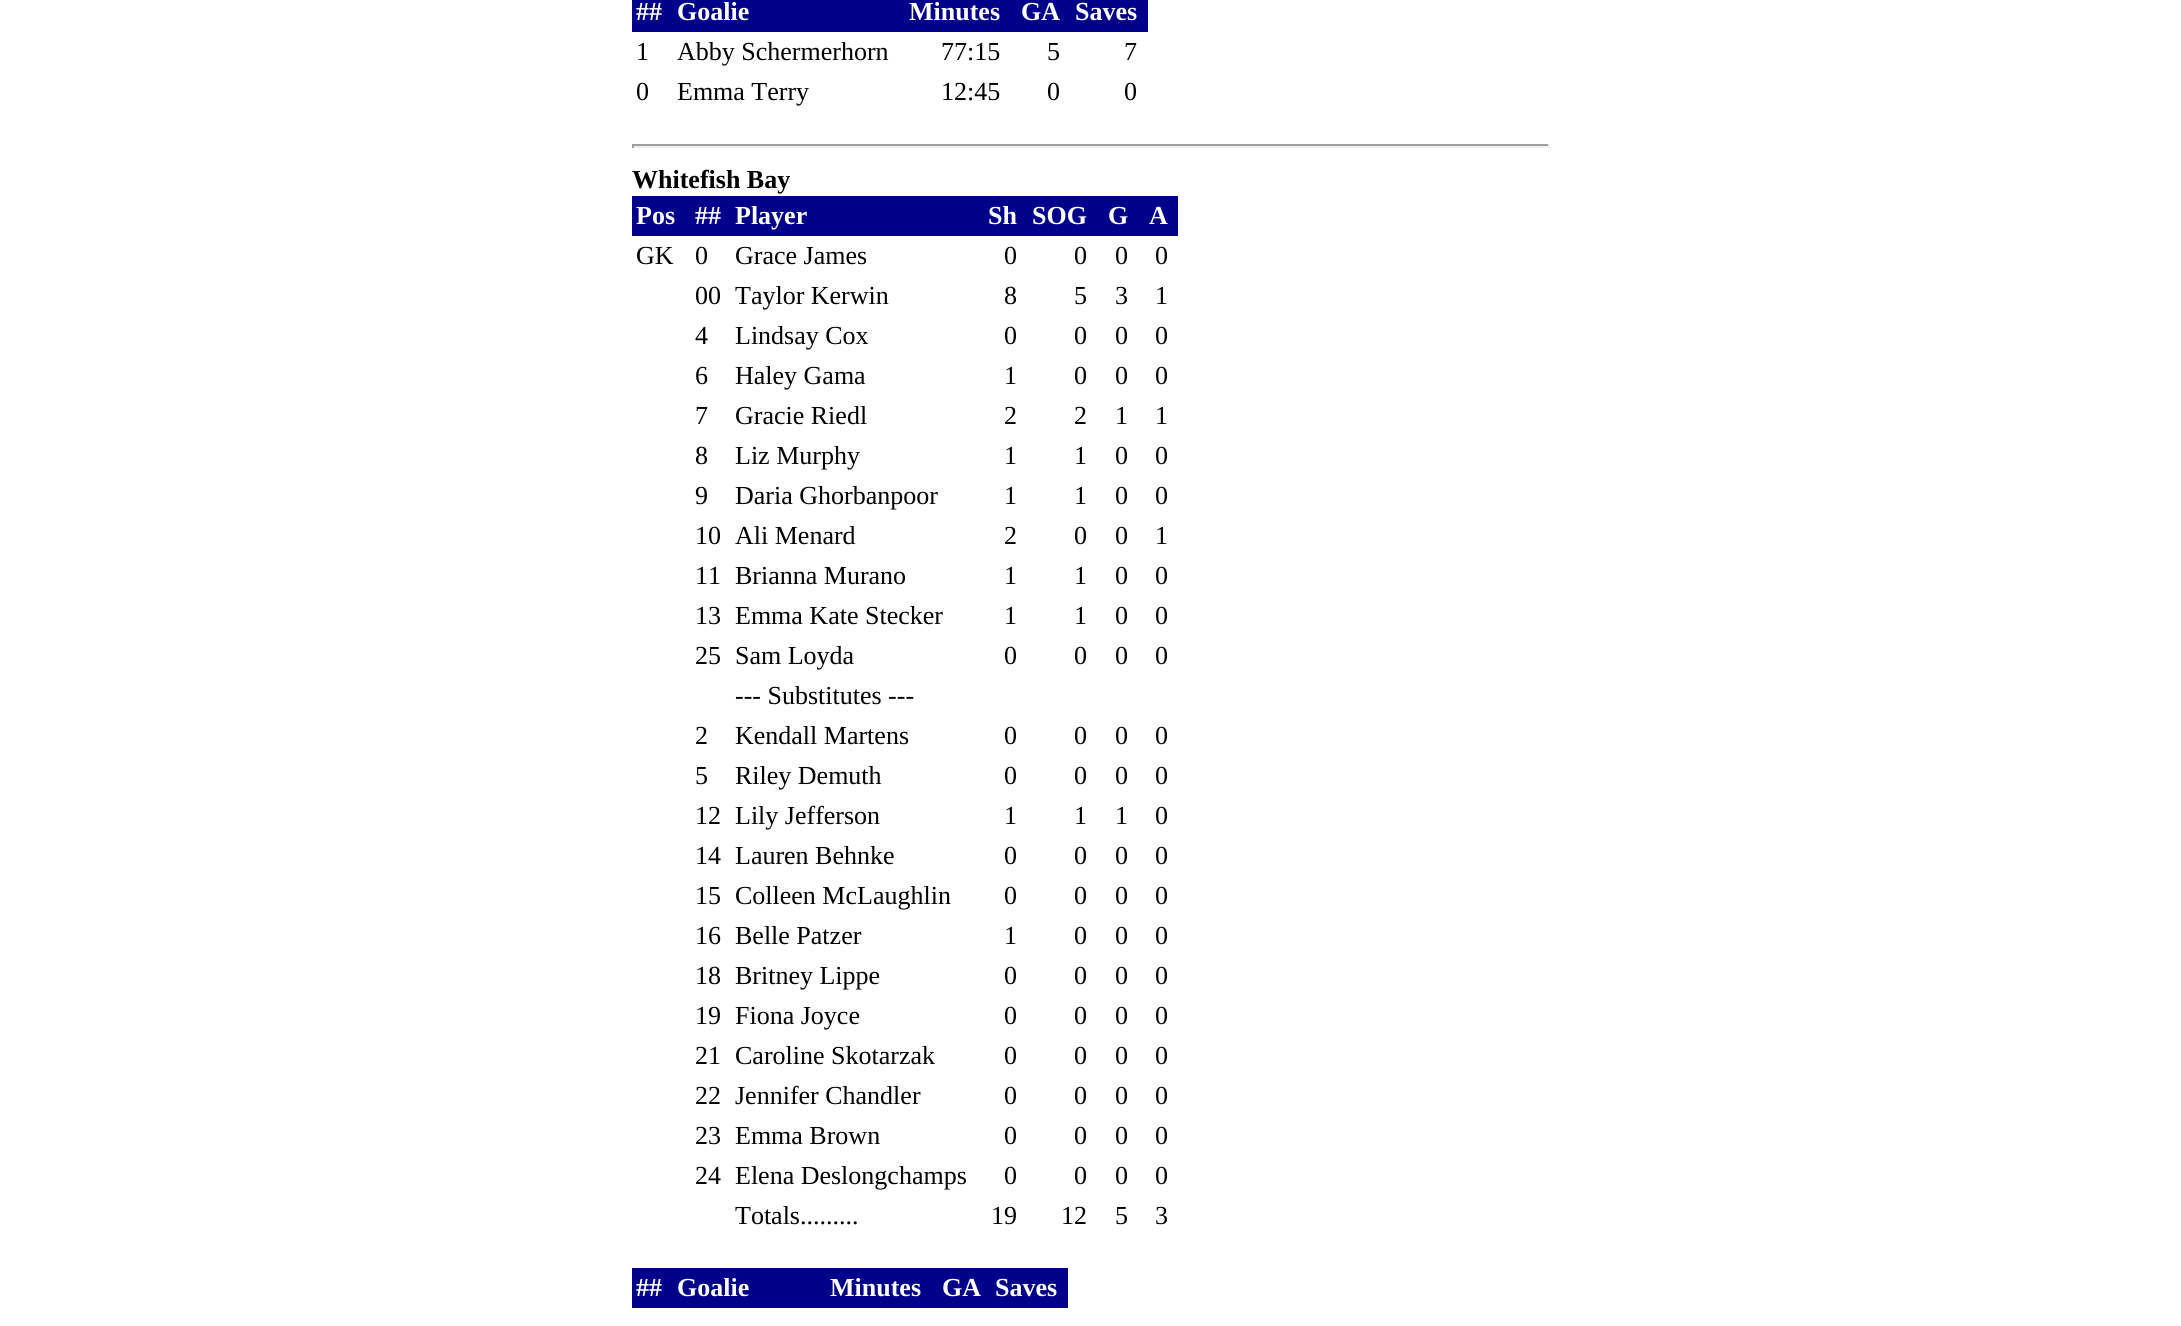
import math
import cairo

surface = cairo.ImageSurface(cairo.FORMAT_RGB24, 2181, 1326)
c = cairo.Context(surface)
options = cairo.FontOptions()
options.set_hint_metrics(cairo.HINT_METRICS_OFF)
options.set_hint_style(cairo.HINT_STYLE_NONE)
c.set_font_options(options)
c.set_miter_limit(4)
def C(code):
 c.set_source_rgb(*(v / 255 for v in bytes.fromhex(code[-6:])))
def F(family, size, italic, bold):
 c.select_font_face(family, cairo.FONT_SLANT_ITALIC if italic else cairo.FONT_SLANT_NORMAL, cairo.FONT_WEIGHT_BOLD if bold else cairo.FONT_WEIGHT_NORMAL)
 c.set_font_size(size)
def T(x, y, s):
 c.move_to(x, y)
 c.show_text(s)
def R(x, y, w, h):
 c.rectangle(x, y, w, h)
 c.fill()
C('ffffff')
c.paint()
C('00008b')
R(632,0,516,32)
F('Liberation Serif',26,0,1)
C('ffffff')
T(636,20,'##')
T(677,20,'Goalie')
T(909,20,'Minutes')
T(1021,20,'GA')
T(1075,20,'Saves')
F('Liberation Serif',26,0,0)
C('000000')
T(636,60,'1')
T(677,60,'Abby Schermerhorn')
T(941,60,'77:15')
T(1047,60,'5')
T(1124,60,'7')
T(636,100,'0')
T(677,100,'Emma Terry')
T(941,100,'12:45')
T(1047,100,'0')
T(1124,100,'0')
C('9f9f9f')
R(632,144,918,2)
C('eeeeee')
R(1548,144,2,4)
R(632,146,918,2)
C('9f9f9f')
R(632,144,2,4)
F('Liberation Serif',26,0,1)
C('000000')
T(632,188,'Whitefish Bay')
C('00008b')
R(632,196,546,40)
C('ffffff')
T(636,224,'Pos')
T(695,224,'##')
T(735,224,'Player')
T(988,224,'Sh')
T(1032,224,'SOG')
T(1108,224,'G')
T(1149,224,'A')
F('Liberation Serif',26,0,0)
C('000000')
T(636,264,'GK')
T(695,264,'0')
T(735,264,'Grace James')
T(1004,264,'0')
T(1074,264,'0')
T(1115,264,'0')
T(1155,264,'0')
T(695,304,'00')
T(735,304,'Taylor Kerwin')
T(1004,304,'8')
T(1074,304,'5')
T(1115,304,'3')
T(1155,304,'1')
T(695,344,'4')
T(735,344,'Lindsay Cox')
T(1004,344,'0')
T(1074,344,'0')
T(1115,344,'0')
T(1155,344,'0')
T(695,384,'6')
T(735,384,'Haley Gama')
T(1004,384,'1')
T(1074,384,'0')
T(1115,384,'0')
T(1155,384,'0')
T(695,424,'7')
T(735,424,'Gracie Riedl')
T(1004,424,'2')
T(1074,424,'2')
T(1115,424,'1')
T(1155,424,'1')
T(695,464,'8')
T(735,464,'Liz Murphy')
T(1004,464,'1')
T(1074,464,'1')
T(1115,464,'0')
T(1155,464,'0')
T(695,504,'9')
T(735,504,'Daria Ghorbanpoor')
T(1004,504,'1')
T(1074,504,'1')
T(1115,504,'0')
T(1155,504,'0')
T(695,544,'10')
T(735,544,'Ali Menard')
T(1004,544,'2')
T(1074,544,'0')
T(1115,544,'0')
T(1155,544,'1')
T(695,584,'11')
T(735,584,'Brianna Murano')
T(1004,584,'1')
T(1074,584,'1')
T(1115,584,'0')
T(1155,584,'0')
T(695,624,'13')
T(735,624,'Emma Kate Stecker')
T(1004,624,'1')
T(1074,624,'1')
T(1115,624,'0')
T(1155,624,'0')
T(695,664,'25')
T(735,664,'Sam Loyda')
T(1004,664,'0')
T(1074,664,'0')
T(1115,664,'0')
T(1155,664,'0')
T(735,704,'--- Substitutes ---')
T(695,744,'2')
T(735,744,'Kendall Martens')
T(1004,744,'0')
T(1074,744,'0')
T(1115,744,'0')
T(1155,744,'0')
T(695,784,'5')
T(735,784,'Riley Demuth')
T(1004,784,'0')
T(1074,784,'0')
T(1115,784,'0')
T(1155,784,'0')
T(695,824,'12')
T(735,824,'Lily Jefferson')
T(1004,824,'1')
T(1074,824,'1')
T(1115,824,'1')
T(1155,824,'0')
T(695,864,'14')
T(735,864,'Lauren Behnke')
T(1004,864,'0')
T(1074,864,'0')
T(1115,864,'0')
T(1155,864,'0')
T(695,904,'15')
T(735,904,'Colleen McLaughlin')
T(1004,904,'0')
T(1074,904,'0')
T(1115,904,'0')
T(1155,904,'0')
T(695,944,'16')
T(735,944,'Belle Patzer')
T(1004,944,'1')
T(1074,944,'0')
T(1115,944,'0')
T(1155,944,'0')
T(695,984,'18')
T(735,984,'Britney Lippe')
T(1004,984,'0')
T(1074,984,'0')
T(1115,984,'0')
T(1155,984,'0')
T(695,1024,'19')
T(735,1024,'Fiona Joyce')
T(1004,1024,'0')
T(1074,1024,'0')
T(1115,1024,'0')
T(1155,1024,'0')
T(695,1064,'21')
T(735,1064,'Caroline Skotarzak')
T(1004,1064,'0')
T(1074,1064,'0')
T(1115,1064,'0')
T(1155,1064,'0')
T(695,1104,'22')
T(735,1104,'Jennifer Chandler')
T(1004,1104,'0')
T(1074,1104,'0')
T(1115,1104,'0')
T(1155,1104,'0')
T(695,1144,'23')
T(735,1144,'Emma Brown')
T(1004,1144,'0')
T(1074,1144,'0')
T(1115,1144,'0')
T(1155,1144,'0')
T(695,1184,'24')
T(735,1184,'Elena Deslongchamps')
T(1004,1184,'0')
T(1074,1184,'0')
T(1115,1184,'0')
T(1155,1184,'0')
T(735,1224,'Totals.........')
T(991,1224,'19')
T(1061,1224,'12')
T(1115,1224,'5')
T(1155,1224,'3')
C('00008b')
R(632,1268,436,40)
F('Liberation Serif',26,0,1)
C('ffffff')
T(636,1296,'##')
T(677,1296,'Goalie')
T(830,1296,'Minutes')
T(942,1296,'GA')
T(995,1296,'Saves')
surface.write_to_png('o.png')
